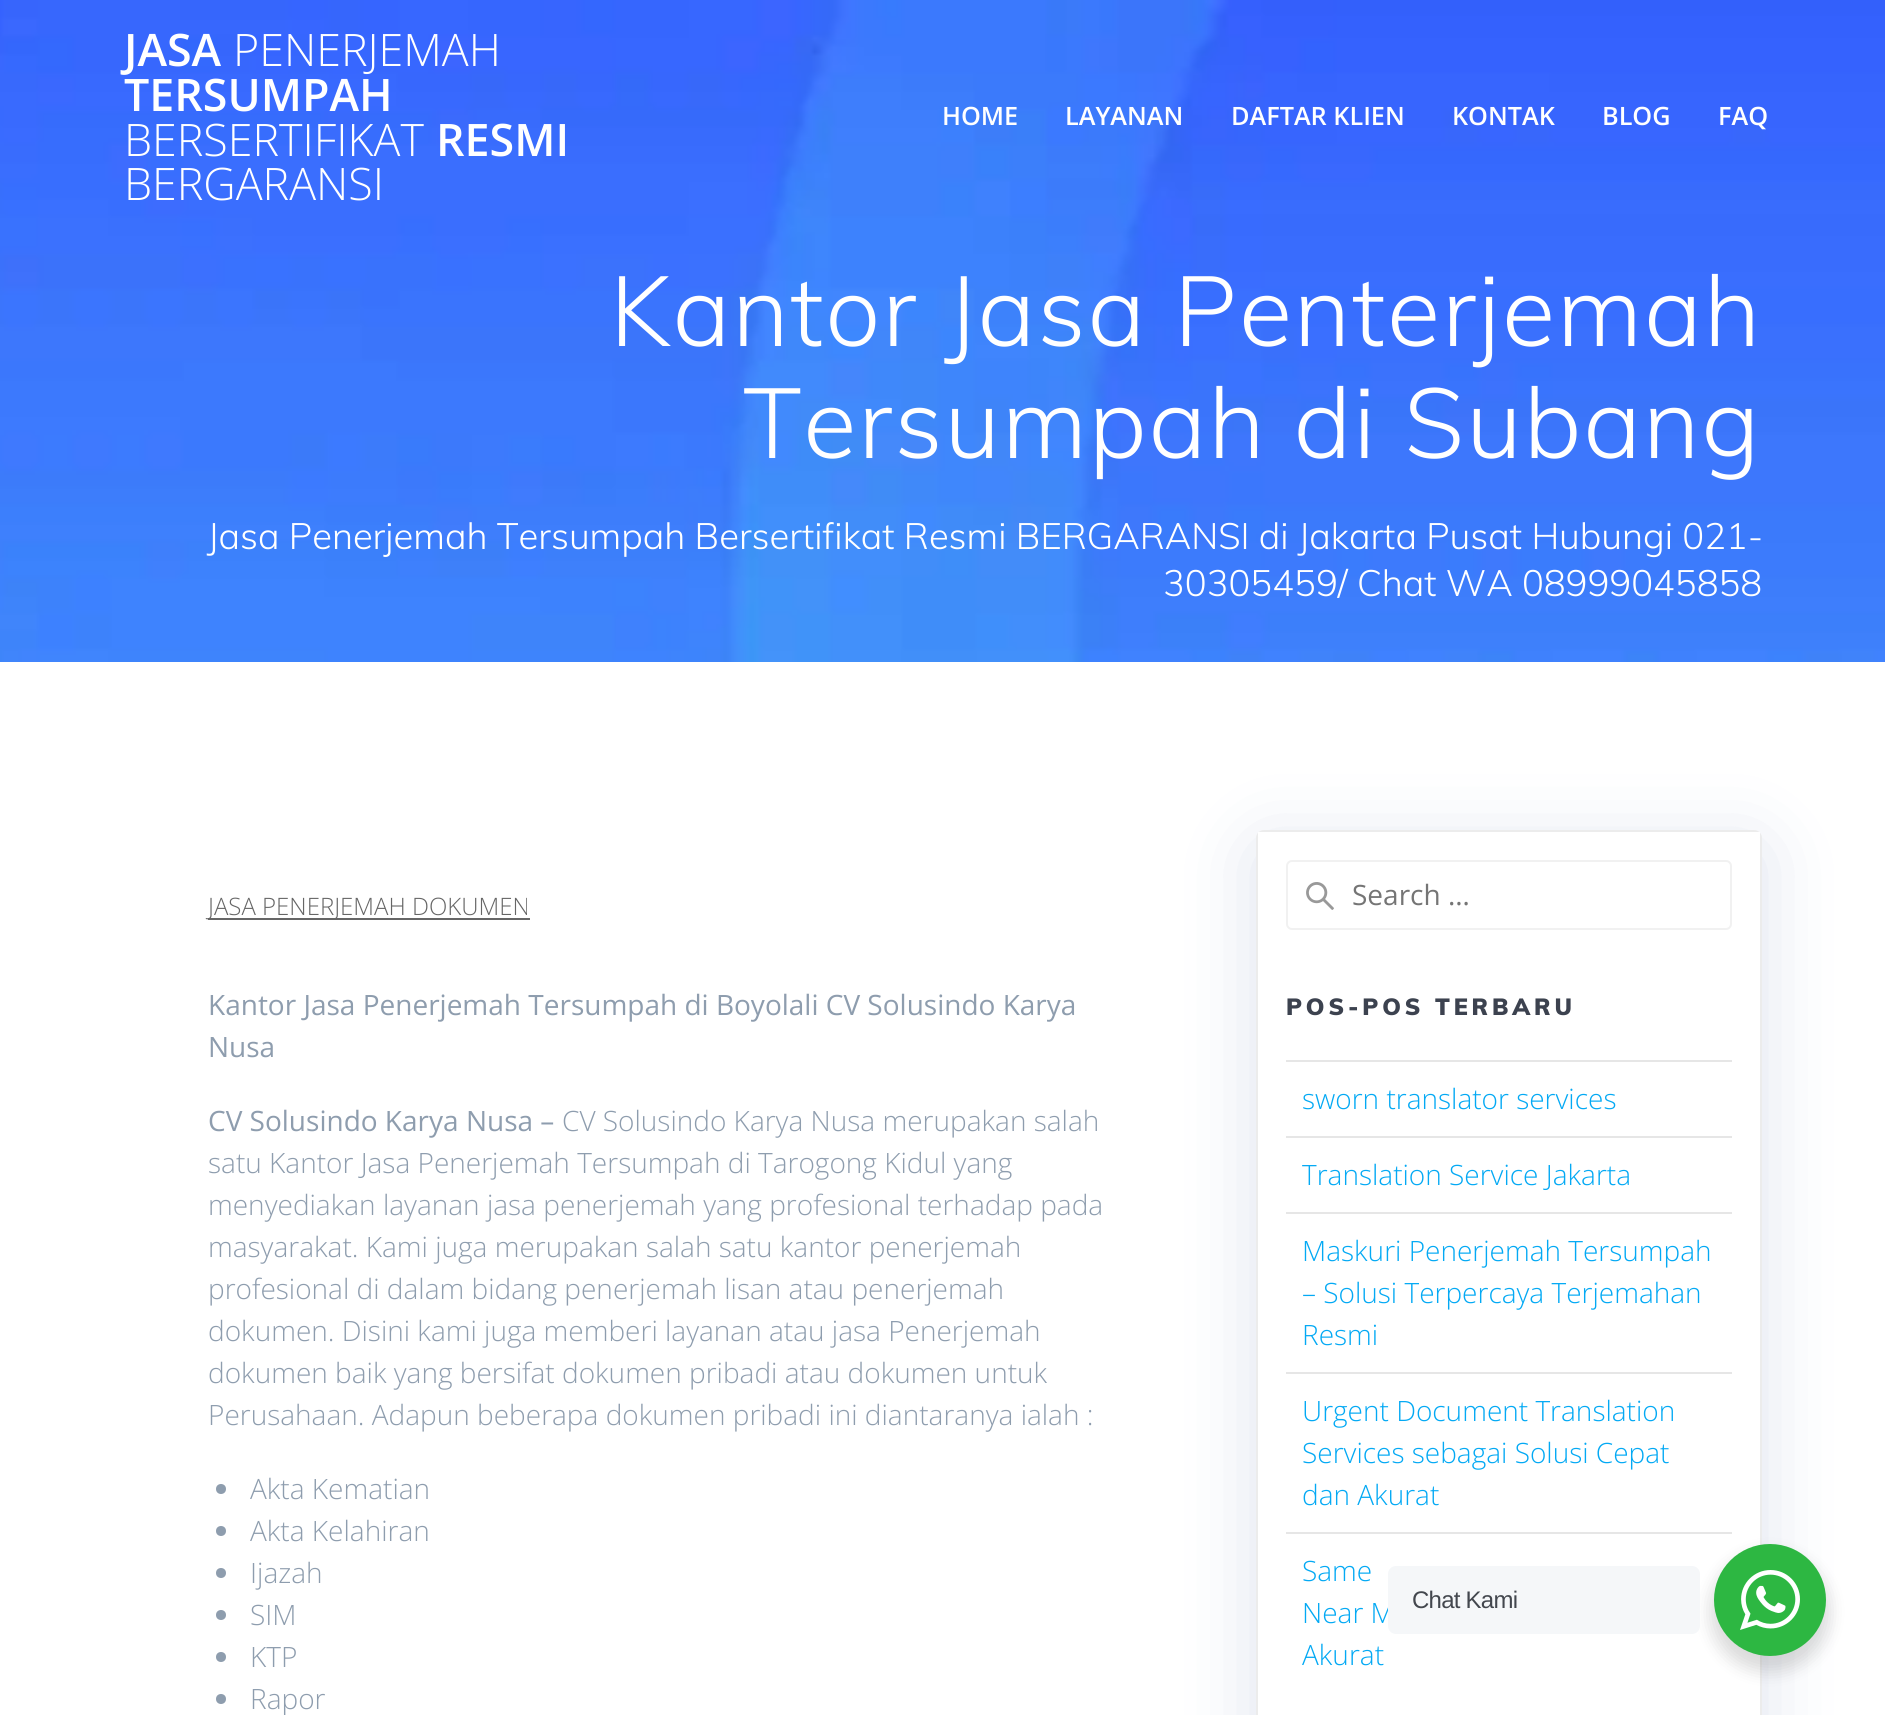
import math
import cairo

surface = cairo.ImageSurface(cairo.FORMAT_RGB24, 1885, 1715)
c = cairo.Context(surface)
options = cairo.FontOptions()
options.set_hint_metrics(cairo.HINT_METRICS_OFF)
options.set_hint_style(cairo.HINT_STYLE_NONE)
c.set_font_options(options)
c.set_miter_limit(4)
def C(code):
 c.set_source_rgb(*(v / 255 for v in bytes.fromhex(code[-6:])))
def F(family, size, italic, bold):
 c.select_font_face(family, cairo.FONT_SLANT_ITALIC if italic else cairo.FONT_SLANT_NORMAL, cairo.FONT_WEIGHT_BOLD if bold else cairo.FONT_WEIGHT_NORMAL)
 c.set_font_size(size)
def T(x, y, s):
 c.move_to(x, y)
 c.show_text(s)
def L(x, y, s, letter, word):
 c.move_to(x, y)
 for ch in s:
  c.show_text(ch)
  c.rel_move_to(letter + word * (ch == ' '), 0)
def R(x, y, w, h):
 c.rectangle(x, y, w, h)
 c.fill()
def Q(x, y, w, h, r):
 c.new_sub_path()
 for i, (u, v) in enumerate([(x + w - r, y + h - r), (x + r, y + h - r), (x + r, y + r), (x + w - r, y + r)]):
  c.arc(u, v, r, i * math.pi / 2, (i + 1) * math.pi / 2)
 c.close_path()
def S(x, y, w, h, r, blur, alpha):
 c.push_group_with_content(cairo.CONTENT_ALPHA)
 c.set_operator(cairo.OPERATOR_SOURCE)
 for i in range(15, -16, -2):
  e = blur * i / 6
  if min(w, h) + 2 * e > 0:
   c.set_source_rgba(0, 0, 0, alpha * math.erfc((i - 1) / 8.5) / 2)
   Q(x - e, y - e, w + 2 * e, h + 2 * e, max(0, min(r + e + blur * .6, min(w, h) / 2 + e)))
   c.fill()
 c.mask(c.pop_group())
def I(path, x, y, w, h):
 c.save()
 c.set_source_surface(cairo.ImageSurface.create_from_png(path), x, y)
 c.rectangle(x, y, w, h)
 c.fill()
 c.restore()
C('ffffff')
c.paint()
I('1.png',0,0,1885,662)
F('Open Sans SemiBold',44.75,0,0)
C('ffffff')
T(124,66,'JASA')
F('Open Sans Light',44.75,0,0)
T(233,66,'PENERJEMAH')
F('Open Sans SemiBold',44.75,0,0)
T(124,111,'TERSUMPAH')
F('Open Sans Light',44.75,0,0)
T(124,156,'BERSERTIFIKAT')
F('Open Sans SemiBold',44.75,0,0)
T(436,156,'RESMI')
F('Open Sans Light',44.75,0,0)
T(124,200,'BERGARANSI')
F('Open Sans SemiBold',25.25,0,0)
T(942,125,'HOME')
T(1065,125,'LAYANAN')
T(1231,125,'DAFTAR KLIEN')
T(1452,125,'KONTAK')
T(1602,125,'BLOG')
T(1718,125,'FAQ')
F('Muli Light',98,0,0)
L(610,346,'Kantor Jasa Penterjemah',1.8,0)
L(743,458,'Tersumpah di Subang',1.8,0)
F('Muli Light',36.4,0,0)
T(207,549,'Jasa Penerjemah Tersumpah Bersertifikat Resmi BERGARANSI di Jakarta Pusat Hubungi 021-')
T(1163,596,'30305459/ Chat WA 08999045858')
C('666666')
R(208,918,322,2)
F('Open Sans Light',24,0,0)
T(208,915,'JASA PENERJEMAH DOKUMEN')
F('Open Sans',28,0,0)
C('8e9dae')
T(208,1015,'Kantor Jasa Penerjemah Tersumpah di Boyolali CV Solusindo Karya')
T(208,1057,'Nusa')
T(208,1131,'CV Solusindo Karya Nusa –')
F('Open Sans Light',28,0,0)
T(562,1131,'CV Solusindo Karya Nusa merupakan salah')
T(208,1173,'satu Kantor Jasa Penerjemah Tersumpah di Tarogong Kidul yang')
T(208,1215,'menyediakan layanan jasa penerjemah yang profesional terhadap pada')
T(208,1257,'masyarakat. Kami juga merupakan salah satu kantor penerjemah')
T(208,1299,'profesional di dalam bidang penerjemah lisan atau penerjemah')
T(208,1341,'dokumen. Disini kami juga memberi layanan atau jasa Penerjemah')
T(208,1383,'dokumen baik yang bersifat dokumen pribadi atau dokumen untuk')
T(208,1425,'Perusahaan. Adapun beberapa dokumen pribadi ini diantaranya ialah :')
c.new_path()
c.arc(221,1489,5,0,2 * math.pi)
c.fill()
T(250,1499,'Akta Kematian')
c.new_path()
c.arc(221,1531,5,0,2 * math.pi)
c.fill()
T(250,1541,'Akta Kelahiran')
c.new_path()
c.arc(221,1573,5,0,2 * math.pi)
c.fill()
T(250,1583,'Ijazah')
c.new_path()
c.arc(221,1615,5,0,2 * math.pi)
c.fill()
T(250,1625,'SIM')
c.new_path()
c.arc(221,1657,5,0,2 * math.pi)
c.fill()
T(250,1667,'KTP')
c.new_path()
c.arc(221,1699,5,0,2 * math.pi)
c.fill()
T(250,1709,'Rapor')
C('234598')
S(1256,846,506,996,8,39.5,.15)
C('ffffff')
Q(1257,831,504,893,7)
c.fill_preserve()
C('ececec')
c.stroke()
C('ffffff')
R(1258,832,502,5)
I('2.png',1306,882,28,28)
Q(1287,861,444,68,5)
C('f1f1f1')
c.stroke()
F('Open Sans',28,0,0)
C('757575')
T(1352,905,'Search …')
F('Muli Black',23.25,0,0)
C('3c424f')
L(1286,1015,'POS-POS TERBARU',3.9,0)
C('e6e6e6')
R(1286,1060,446,2)
F('Open Sans Light',28,0,0)
C('03a9f4')
T(1302,1109,'sworn translator services')
C('e6e6e6')
R(1286,1136,446,2)
C('03a9f4')
T(1302,1185,'Translation Service Jakarta')
C('e6e6e6')
R(1286,1212,446,2)
C('03a9f4')
T(1302,1261,'Maskuri Penerjemah Tersumpah')
T(1302,1303,'– Solusi Terpercaya Terjemahan')
T(1302,1345,'Resmi')
C('e6e6e6')
R(1286,1372,446,2)
C('03a9f4')
T(1302,1421,'Urgent Document Translation')
T(1302,1463,'Services sebagai Solusi Cepat')
T(1302,1505,'dan Akurat')
C('e6e6e6')
R(1286,1532,446,2)
C('03a9f4')
T(1302,1581,'Same')
T(1302,1623,'Near M')
T(1302,1665,'Akurat')
C('000000')
S(1710,1552,120,120,60,8,.14)
C('f5f7f9')
Q(1388,1566,312,68,8)
c.fill()
F('Liberation Sans',24,0,0)
C('43474e')
L(1412,1608,'Chat Kami',-.75,0)
C('2db742')
c.new_path()
c.arc(1770,1600,56,0,2 * math.pi)
c.fill()
I('3.png',1740,1570,60,60)
surface.write_to_png('o.png')
